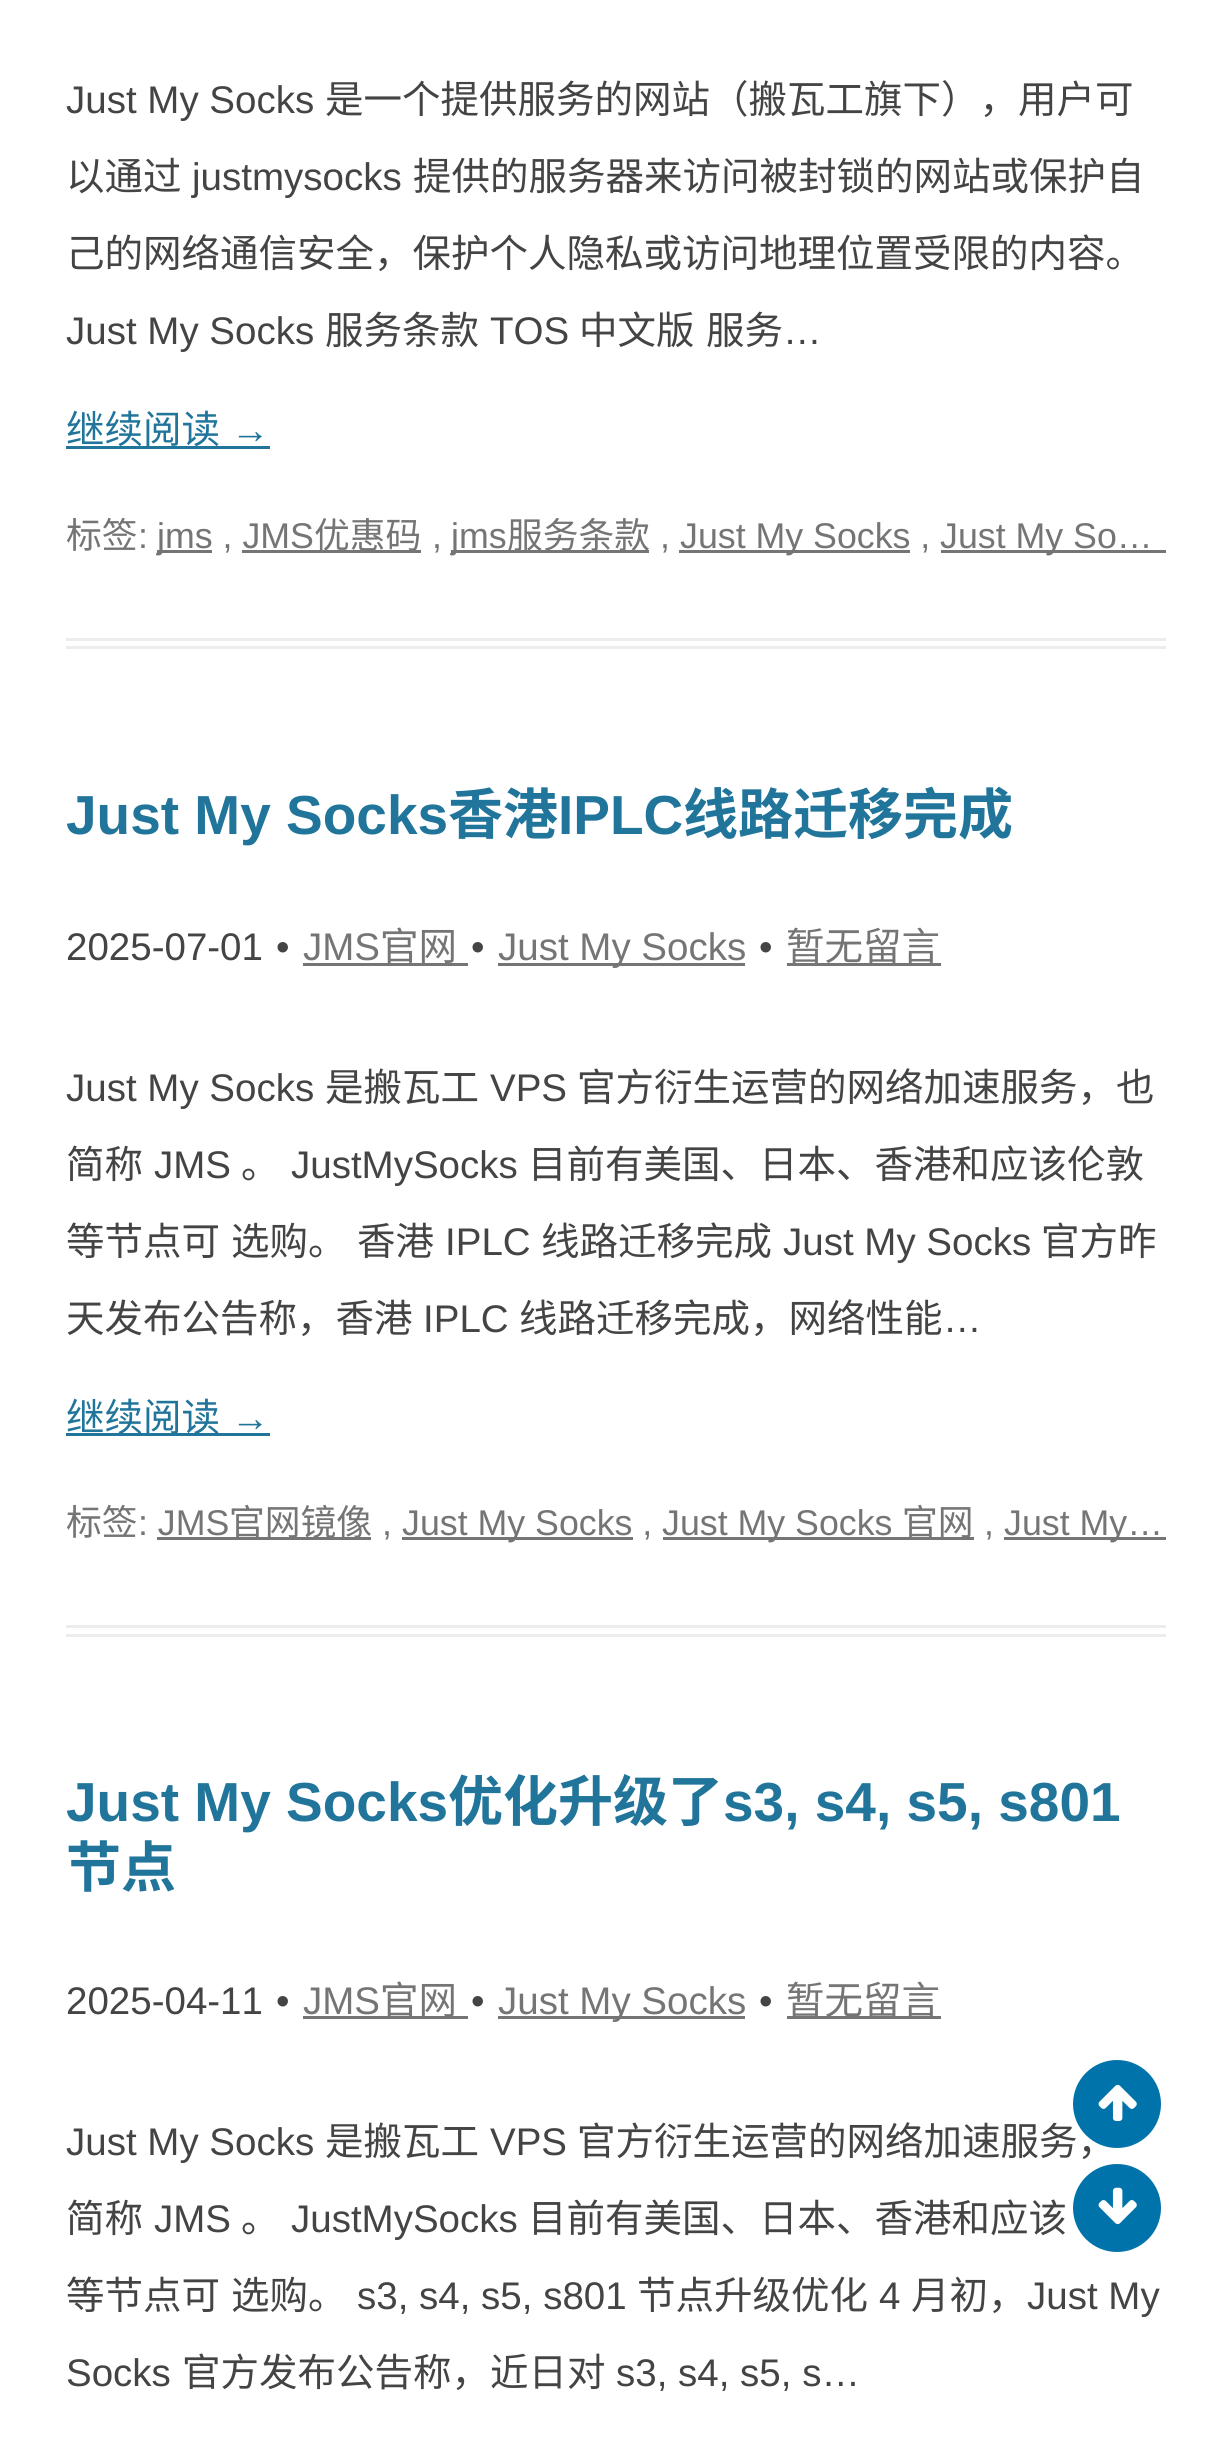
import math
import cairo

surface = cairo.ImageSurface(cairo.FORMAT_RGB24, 1230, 2437)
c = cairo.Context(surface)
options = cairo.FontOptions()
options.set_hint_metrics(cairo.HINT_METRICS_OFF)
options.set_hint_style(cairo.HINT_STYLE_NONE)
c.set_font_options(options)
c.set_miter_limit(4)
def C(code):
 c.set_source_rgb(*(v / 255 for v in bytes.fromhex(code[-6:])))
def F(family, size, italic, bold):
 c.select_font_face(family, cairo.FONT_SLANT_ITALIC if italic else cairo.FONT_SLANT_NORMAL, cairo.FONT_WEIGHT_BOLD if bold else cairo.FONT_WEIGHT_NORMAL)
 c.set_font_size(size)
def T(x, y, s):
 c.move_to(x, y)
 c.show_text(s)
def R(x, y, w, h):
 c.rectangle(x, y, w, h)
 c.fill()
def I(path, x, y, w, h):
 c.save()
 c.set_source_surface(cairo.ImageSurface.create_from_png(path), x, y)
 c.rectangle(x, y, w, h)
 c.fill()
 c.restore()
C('ffffff')
c.paint()
C('ededed')
R(66,638,1100,3)
R(66,646,1100,3)
F('Liberation Sans',38.5,0,0)
C('444444')
T(66,113,'Just My Socks')
F('Noto Sans CJK SC',38.5,0,0)
T(325,113,'是一个提供服务的网站（搬瓦工旗下），用户可')
T(66,190,'以通过')
F('Liberation Sans',38.5,0,0)
T(192,190,'justmysocks')
F('Noto Sans CJK SC',38.5,0,0)
T(413,190,'提供的服务器来访问被封锁的网站或保护自')
T(66,267,'己的网络通信安全，保护个人隐私或访问地理位置受限的内容。')
F('Liberation Sans',38.5,0,0)
T(66,344,'Just My Socks')
F('Noto Sans CJK SC',38.5,0,0)
T(325,344,'服务条款')
F('Liberation Sans',38.5,0,0)
T(490,344,'TOS')
F('Noto Sans CJK SC',38.5,0,0)
T(579,344,'中文版')
T(706,344,'服务')
F('Liberation Sans',38.5,0,0)
T(783,344,'…')
C('21759b')
R(66,446,204,3)
F('Noto Sans CJK SC',38.5,0,0)
T(66,443,'继续阅读')
F('Liberation Sans',38.5,0,0)
T(231,443,'→')
F('Noto Sans CJK SC',35.75,0,0)
C('757575')
T(66,548,'标签')
F('Liberation Sans',35.75,0,0)
T(138,548,':')
R(157,550,55,3)
T(157,548,'jms , JMS')
R(242,550,179,3)
F('Noto Sans CJK SC',35.75,0,0)
T(314,548,'优惠码')
F('Liberation Sans',35.75,0,0)
T(432,548,',')
R(451,550,198,3)
T(451,548,'jms')
F('Noto Sans CJK SC',35.75,0,0)
T(507,548,'服务条款')
F('Liberation Sans',35.75,0,0)
T(660,548,',')
R(679,550,231,3)
T(680,548,'Just My Socks ,')
R(941,550,225,3)
T(940,548,'Just My So…')
C('ededed')
R(66,1625,1100,3)
R(66,1634,1100,3)
F('Liberation Sans',55,0,1)
C('21759b')
T(66,834,'Just My Socks')
F('Noto Sans CJK SC',55,0,1)
T(448,834,'香港')
F('Liberation Sans',55,0,1)
T(558,834,'IPLC')
F('Noto Sans CJK SC',55,0,1)
T(683,834,'线路迁移完成')
F('Liberation Sans',38.5,0,0)
C('444444')
T(66,960,'2025-07-01')
T(276,960,'•')
C('757575')
T(303,960,'JMS')
R(303,963,165,3)
F('Noto Sans CJK SC',38.5,0,0)
T(380,960,'官网')
F('Liberation Sans',38.5,0,0)
C('444444')
T(471,960,'•')
C('757575')
R(498,963,247,3)
T(498,960,'Just My Socks')
C('444444')
T(759,960,'•')
C('757575')
R(787,963,154,3)
F('Noto Sans CJK SC',38.5,0,0)
T(786,960,'暂无留言')
F('Liberation Sans',38.5,0,0)
C('444444')
T(66,1101,'Just My Socks')
F('Noto Sans CJK SC',38.5,0,0)
T(325,1101,'是搬瓦工')
F('Liberation Sans',38.5,0,0)
T(490,1101,'VPS')
F('Noto Sans CJK SC',38.5,0,0)
T(577,1101,'官方衍生运营的网络加速服务，也')
T(66,1178,'简称')
F('Liberation Sans',38.5,0,0)
T(154,1178,'JMS')
F('Noto Sans CJK SC',38.5,0,0)
T(241,1178,'。')
F('Liberation Sans',38.5,0,0)
T(291,1178,'JustMySocks')
F('Noto Sans CJK SC',38.5,0,0)
T(528,1178,'目前有美国、日本、香港和应该伦敦')
T(66,1255,'等节点可')
T(231,1255,'选购。')
T(357,1255,'香港')
F('Liberation Sans',38.5,0,0)
T(445,1255,'IPLC')
F('Noto Sans CJK SC',38.5,0,0)
T(541,1255,'线路迁移完成')
F('Liberation Sans',38.5,0,0)
T(783,1255,'Just My Socks')
F('Noto Sans CJK SC',38.5,0,0)
T(1041,1255,'官方昨')
T(66,1332,'天发布公告称，香港')
F('Liberation Sans',38.5,0,0)
T(423,1332,'IPLC')
F('Noto Sans CJK SC',38.5,0,0)
T(519,1332,'线路迁移完成，网络性能')
F('Liberation Sans',38.5,0,0)
T(943,1332,'…')
C('21759b')
R(66,1433,204,3)
F('Noto Sans CJK SC',38.5,0,0)
T(66,1431,'继续阅读')
F('Liberation Sans',38.5,0,0)
T(231,1431,'→')
F('Noto Sans CJK SC',35.75,0,0)
C('757575')
T(66,1535,'标签')
F('Liberation Sans',35.75,0,0)
T(138,1535,': JMS')
R(157,1537,214,3)
F('Noto Sans CJK SC',35.75,0,0)
T(229,1535,'官网镜像')
F('Liberation Sans',35.75,0,0)
T(382,1535,',')
R(402,1537,231,3)
T(402,1535,'Just My Socks ,')
R(663,1537,311,3)
T(662,1535,'Just My Socks')
F('Noto Sans CJK SC',35.75,0,0)
T(902,1535,'官网')
F('Liberation Sans',35.75,0,0)
T(984,1535,',')
R(1004,1537,162,3)
T(1004,1535,'Just My…')
F('Liberation Sans',55,0,1)
C('21759b')
T(66,1821,'Just My Socks')
F('Noto Sans CJK SC',55,0,1)
T(448,1821,'优化升级了')
F('Liberation Sans',55,0,1)
T(723,1821,'s3, s4, s5, s801')
F('Noto Sans CJK SC',55,0,1)
T(66,1887,'节点')
F('Liberation Sans',38.5,0,0)
C('444444')
T(66,2014,'2025-04-11')
T(276,2014,'•')
C('757575')
T(303,2014,'JMS')
R(303,2016,165,3)
F('Noto Sans CJK SC',38.5,0,0)
T(380,2014,'官网')
F('Liberation Sans',38.5,0,0)
C('444444')
T(471,2014,'•')
C('757575')
R(498,2016,247,3)
T(498,2014,'Just My Socks')
C('444444')
T(759,2014,'•')
C('757575')
R(787,2016,154,3)
F('Noto Sans CJK SC',38.5,0,0)
T(786,2014,'暂无留言')
F('Liberation Sans',38.5,0,0)
C('444444')
T(66,2155,'Just My Socks')
F('Noto Sans CJK SC',38.5,0,0)
T(325,2155,'是搬瓦工')
F('Liberation Sans',38.5,0,0)
T(490,2155,'VPS')
F('Noto Sans CJK SC',38.5,0,0)
T(577,2155,'官方衍生运营的网络加速服务，')
T(66,2232,'简称')
F('Liberation Sans',38.5,0,0)
T(154,2232,'JMS')
F('Noto Sans CJK SC',38.5,0,0)
T(241,2232,'。')
F('Liberation Sans',38.5,0,0)
T(291,2232,'JustMySocks')
F('Noto Sans CJK SC',38.5,0,0)
T(528,2232,'目前有美国、日本、香港和应该')
T(66,2309,'等节点可')
T(231,2309,'选购。')
F('Liberation Sans',38.5,0,0)
T(357,2309,'s3, s4, s5, s801')
F('Noto Sans CJK SC',38.5,0,0)
T(637,2309,'节点升级优化')
F('Liberation Sans',38.5,0,0)
T(879,2309,'4')
F('Noto Sans CJK SC',38.5,0,0)
T(911,2309,'月初，')
F('Liberation Sans',38.5,0,0)
T(1027,2309,'Just My')
T(66,2386,'Socks')
F('Noto Sans CJK SC',38.5,0,0)
T(182,2386,'官方发布公告称，近日对')
F('Liberation Sans',38.5,0,0)
T(616,2386,'s3, s4, s5, s…')
C('0073aa')
c.new_path()
c.arc(1117,2104,44,0,2 * math.pi)
c.fill()
I('1.png',1098,2084,39,37)
c.arc(1117,2208,44,0,2 * math.pi)
c.fill()
I('2.png',1098,2187,39,38)
surface.write_to_png('o.png')
